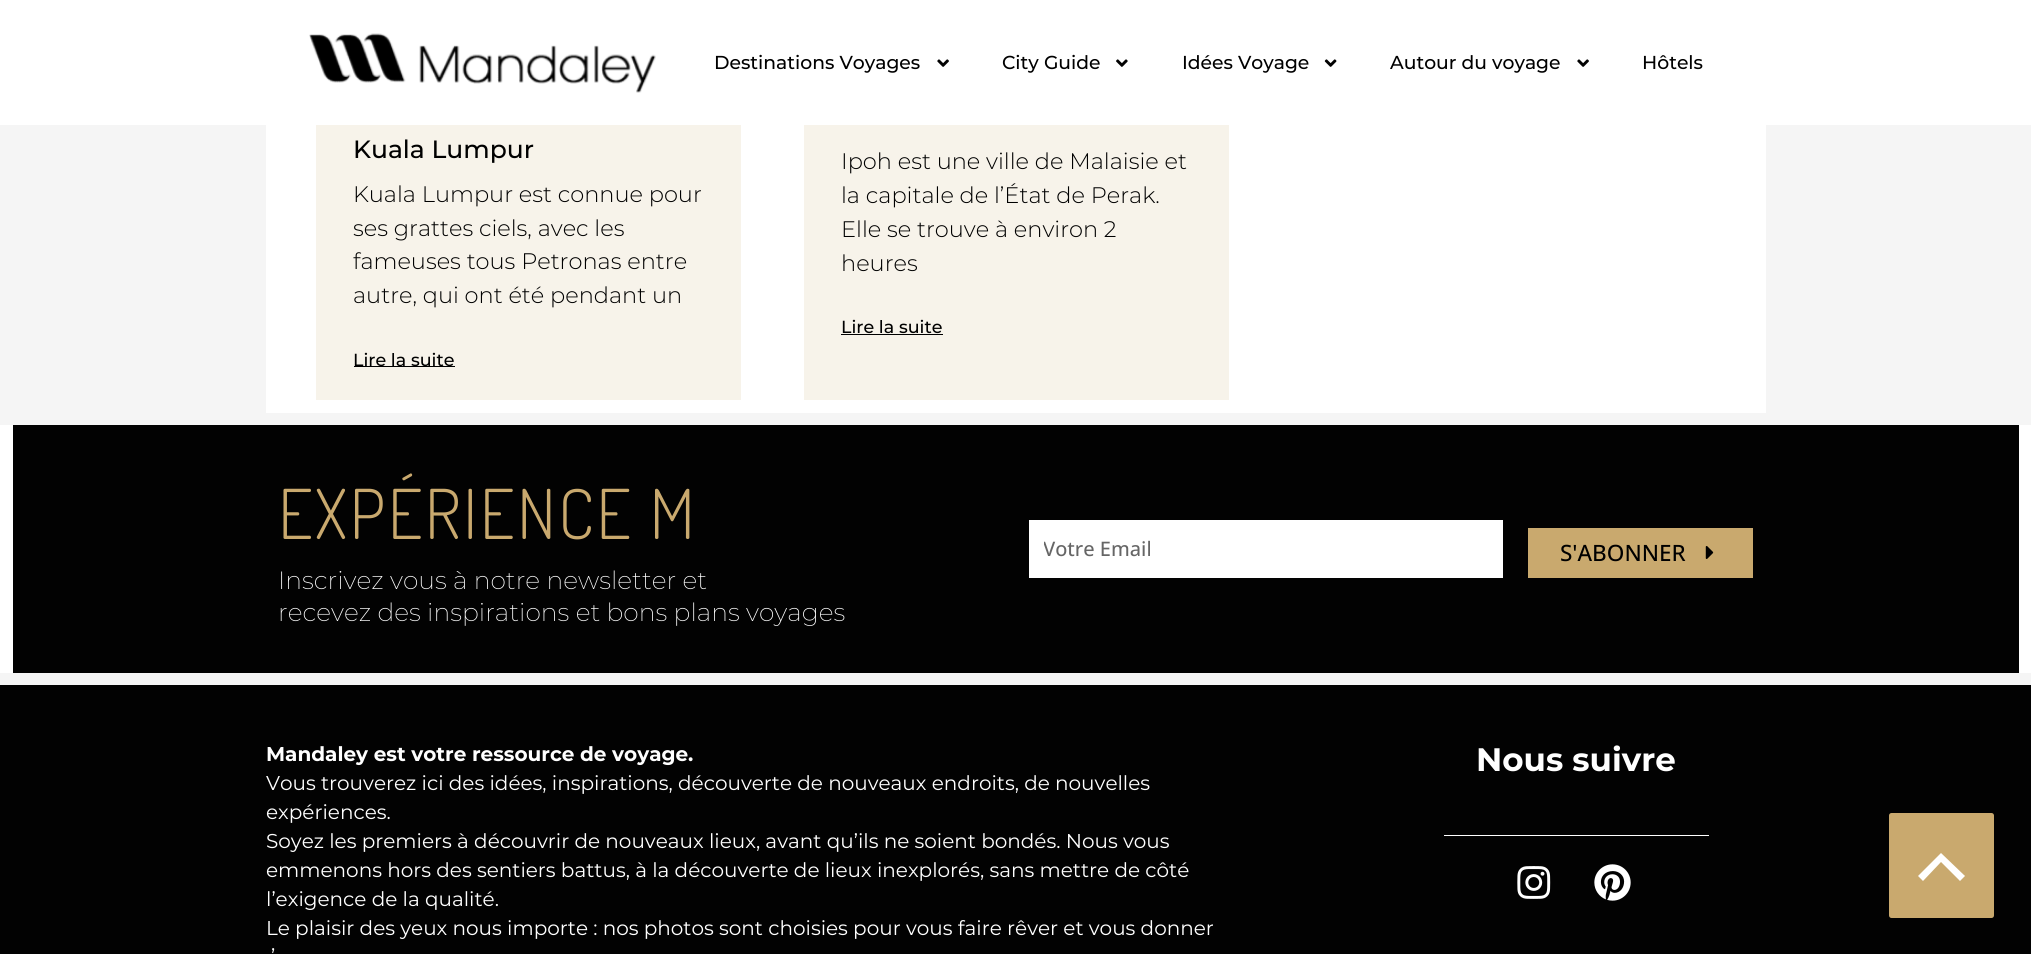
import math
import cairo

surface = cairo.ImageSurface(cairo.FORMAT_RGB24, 2031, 954)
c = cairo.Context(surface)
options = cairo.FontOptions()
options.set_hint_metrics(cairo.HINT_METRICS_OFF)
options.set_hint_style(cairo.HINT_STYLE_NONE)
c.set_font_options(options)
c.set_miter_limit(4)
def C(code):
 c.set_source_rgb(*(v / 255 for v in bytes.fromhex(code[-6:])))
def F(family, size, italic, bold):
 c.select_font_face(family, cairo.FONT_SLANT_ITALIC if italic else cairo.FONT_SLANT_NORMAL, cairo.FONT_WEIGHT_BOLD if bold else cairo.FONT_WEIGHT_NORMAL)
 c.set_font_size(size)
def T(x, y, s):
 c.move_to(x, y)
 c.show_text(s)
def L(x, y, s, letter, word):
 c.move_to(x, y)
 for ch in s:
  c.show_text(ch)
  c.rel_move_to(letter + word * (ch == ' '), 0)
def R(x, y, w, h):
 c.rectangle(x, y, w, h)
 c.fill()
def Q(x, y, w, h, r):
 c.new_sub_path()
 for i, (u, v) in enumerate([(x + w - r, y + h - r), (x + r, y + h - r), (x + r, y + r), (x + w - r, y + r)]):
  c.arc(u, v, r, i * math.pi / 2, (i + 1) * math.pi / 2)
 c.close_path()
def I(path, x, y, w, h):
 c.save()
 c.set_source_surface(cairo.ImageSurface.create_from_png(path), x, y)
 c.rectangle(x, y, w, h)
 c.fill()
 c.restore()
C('f5f5f5')
c.paint()
C('ffffff')
R(0,0,2031,125)
I('1.png',309,33,347,60)
F('Montserrat Medium',18.75,0,0)
C('000000')
T(714,69,'Destinations Voyages')
I('2.png',937,59,12,8)
T(1002,69,'City Guide')
I('3.png',1116,59,12,8)
T(1182,69,'Idées Voyage')
I('4.png',1324,59,13,8)
T(1390,69,'Autour du voyage')
I('2.png',1577,59,12,8)
T(1642,69,'Hôtels')
C('ffffff')
R(266,125,1500,288)
C('f7f3ea')
R(316,125,425,275)
F('Montserrat Medium',25,0,0)
C('000000')
T(353,158,'Kuala Lumpur')
F('Montserrat Light',22.5,0,0)
T(353,202,'Kuala Lumpur est connue pour')
T(353,236,'ses grattes ciels, avec les')
T(353,269,'fameuses tous Petronas entre')
T(353,303,'autre, qui ont été pendant un')
R(354,366,101,1)
F('Montserrat Medium',17.5,0,0)
T(353,366,'Lire la suite')
C('f7f3ea')
R(804,125,425,275)
F('Montserrat Light',22.5,0,0)
C('000000')
T(841,169,'Ipoh est une ville de Malaisie et')
T(841,203,'la capitale de l’État de Perak.')
T(841,237,'Elle se trouve à environ 2')
T(841,271,'heures')
F('Montserrat Medium',17.5,0,0)
T(841,333,'Lire la suite')
R(841,334,102,1)
C('020202')
R(13,425,2006,248)
C('ffffff')
R(2019,425,12,248)
R(0,425,13,248)
F('Dosis Light',68.75,0,0)
C('c9a96e')
L(278,539,'EXPÉRIENCE M',2.5,0)
F('Montserrat ExtraLight',25,0,0)
C('ffffff')
T(278,589,'Inscrivez vous à notre newsletter et')
T(278,621,'recevez des inspirations et bons plans voyages')
R(1029,520,474,58)
c.save()
c.rectangle(1044,535,444,28)
c.clip()
F('Open Sans Medium',20,0,0)
C('666666')
T(1043,556,'Votre Email')
c.restore()
C('c9a96e')
R(1528,528,225,50)
F('Open Sans Medium',22.5,0,0)
C('000000')
T(1560,561,'S\'ABONNER')
I('5.png',1705,546,9,13)
C('020202')
R(0,685,2031,269)
F('Montserrat',20,0,1)
C('ffffff')
T(266,761,'Mandaley est votre ressource de voyage.')
F('Montserrat',20,0,0)
T(266,790,'Vous trouverez ici des idées, inspirations, découverte de nouveaux endroits, de nouvelles')
T(266,819,'expériences.')
T(266,848,'Soyez les premiers à découvrir de nouveaux lieux, avant qu’ils ne soient bondés. Nous vous')
T(266,877,'emmenons hors des sentiers battus, à la découverte de lieux inexplorés, sans mettre de côté')
T(266,906,'l’exigence de la qualité.')
T(266,935,'Le plaisir des yeux nous importe : nos photos sont choisies pour vous faire rêver et vous donner')
T(271,963,'’')
F('Montserrat',32.5,0,1)
T(1476,771,'Nous suivre')
R(1444,835,265,1)
I('6.png',1517,866,34,33)
I('7.png',1594,864,37,37)
C('c9a96e')
Q(1889,813,105,105,2.5)
c.fill()
C('ffffff')
c.new_path()
c.move_to(1965,876)
c.line_to(1941,853)
c.line_to(1918,876)
c.line_to(1923,881)
c.line_to(1941,862)
c.line_to(1960,881)
c.close_path()
c.fill()
surface.write_to_png('o.png')
